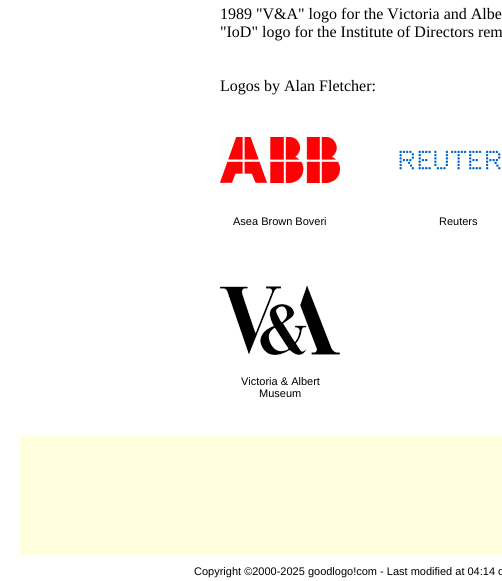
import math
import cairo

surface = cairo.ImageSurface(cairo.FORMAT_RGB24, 502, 581)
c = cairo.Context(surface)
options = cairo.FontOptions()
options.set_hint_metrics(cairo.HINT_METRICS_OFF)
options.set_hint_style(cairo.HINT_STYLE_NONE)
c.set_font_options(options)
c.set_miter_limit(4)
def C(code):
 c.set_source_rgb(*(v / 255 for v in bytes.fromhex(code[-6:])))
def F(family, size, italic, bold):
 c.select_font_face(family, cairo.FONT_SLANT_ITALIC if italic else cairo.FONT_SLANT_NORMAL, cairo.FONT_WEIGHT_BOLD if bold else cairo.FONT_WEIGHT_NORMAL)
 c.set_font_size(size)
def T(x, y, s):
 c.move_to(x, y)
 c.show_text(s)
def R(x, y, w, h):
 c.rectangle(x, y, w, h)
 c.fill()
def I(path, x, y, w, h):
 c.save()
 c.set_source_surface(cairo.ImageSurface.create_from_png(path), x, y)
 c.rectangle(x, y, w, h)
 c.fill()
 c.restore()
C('ffffff')
c.paint()
F('Liberation Serif',16,0,0)
C('000000')
T(220,19,'1989 "V&A" logo for the Victoria and Albe')
T(220,37,'"IoD" logo for the Institute of Directors rem')
T(220,91,'Logos by Alan Fletcher:')
I('1.png',220,137,120,46)
F('Liberation Sans',11,0,0)
T(233,225,'Asea Brown Boveri')
I('2.png',399,150,102,20)
T(439,225,'Reuters')
I('3.png',220,285,120,70)
T(241,385,'Victoria & Albert')
T(259,397,'Museum')
C('ffffdd')
R(20,435,482,120)
C('000000')
T(194,575,'Copyright ©2000-2025 goodlogo!com - Last modified at 04:14 o')
surface.write_to_png('o.png')
